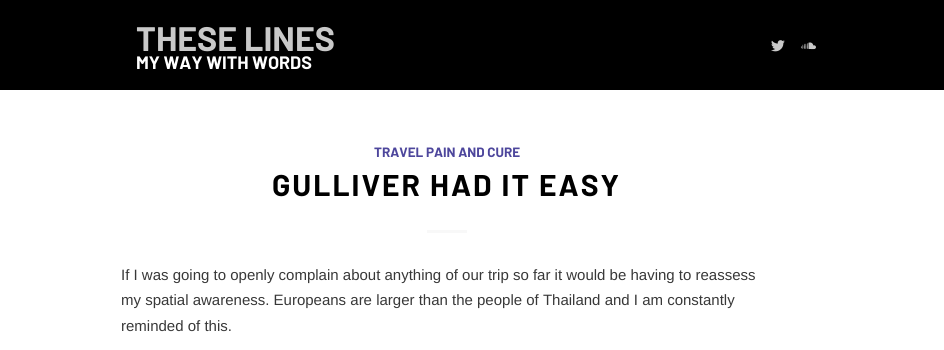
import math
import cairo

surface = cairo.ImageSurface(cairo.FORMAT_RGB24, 944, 350)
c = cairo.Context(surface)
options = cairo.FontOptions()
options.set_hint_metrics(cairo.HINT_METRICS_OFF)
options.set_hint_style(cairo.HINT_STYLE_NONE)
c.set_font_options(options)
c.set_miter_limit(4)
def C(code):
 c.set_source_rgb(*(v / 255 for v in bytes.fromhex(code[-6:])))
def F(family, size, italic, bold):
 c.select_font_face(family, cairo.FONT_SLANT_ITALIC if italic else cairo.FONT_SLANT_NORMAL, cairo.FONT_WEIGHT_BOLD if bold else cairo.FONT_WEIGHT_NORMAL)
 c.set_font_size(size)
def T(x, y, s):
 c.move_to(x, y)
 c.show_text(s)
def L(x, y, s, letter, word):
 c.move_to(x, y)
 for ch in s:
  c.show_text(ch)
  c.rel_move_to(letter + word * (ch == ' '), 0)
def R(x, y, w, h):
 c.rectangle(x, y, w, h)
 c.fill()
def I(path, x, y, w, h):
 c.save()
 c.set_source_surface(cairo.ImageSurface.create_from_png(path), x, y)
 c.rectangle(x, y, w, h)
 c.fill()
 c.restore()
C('ffffff')
c.paint()
C('000000')
R(0,0,944,90)
F('Barlow',34,0,1)
C('c9c9c9')
T(136,51,'THESE LINES')
F('Barlow',18,0,1)
C('ffffff')
T(136,69,'MY WAY WITH WORDS')
I('1.png',771,40,14,12)
I('2.png',801,42,15,8)
F('Barlow',13.5,0,1)
C('4d469c')
T(374,157,'TRAVEL PAIN AND CURE')
F('Barlow',30,0,1)
C('000000')
L(272,196,'GULLIVER HAD IT EASY',2,0)
C('f8f8f8')
R(427,230,40,3)
F('Liberation Sans',15,0,0)
C('383838')
T(121,280,'If I was going to openly complain about anything of our trip so far it would be having to reassess')
T(121,305,'my spatial awareness. Europeans are larger than the people of Thailand and I am constantly')
T(121,331,'reminded of this.')
surface.write_to_png('o.png')
